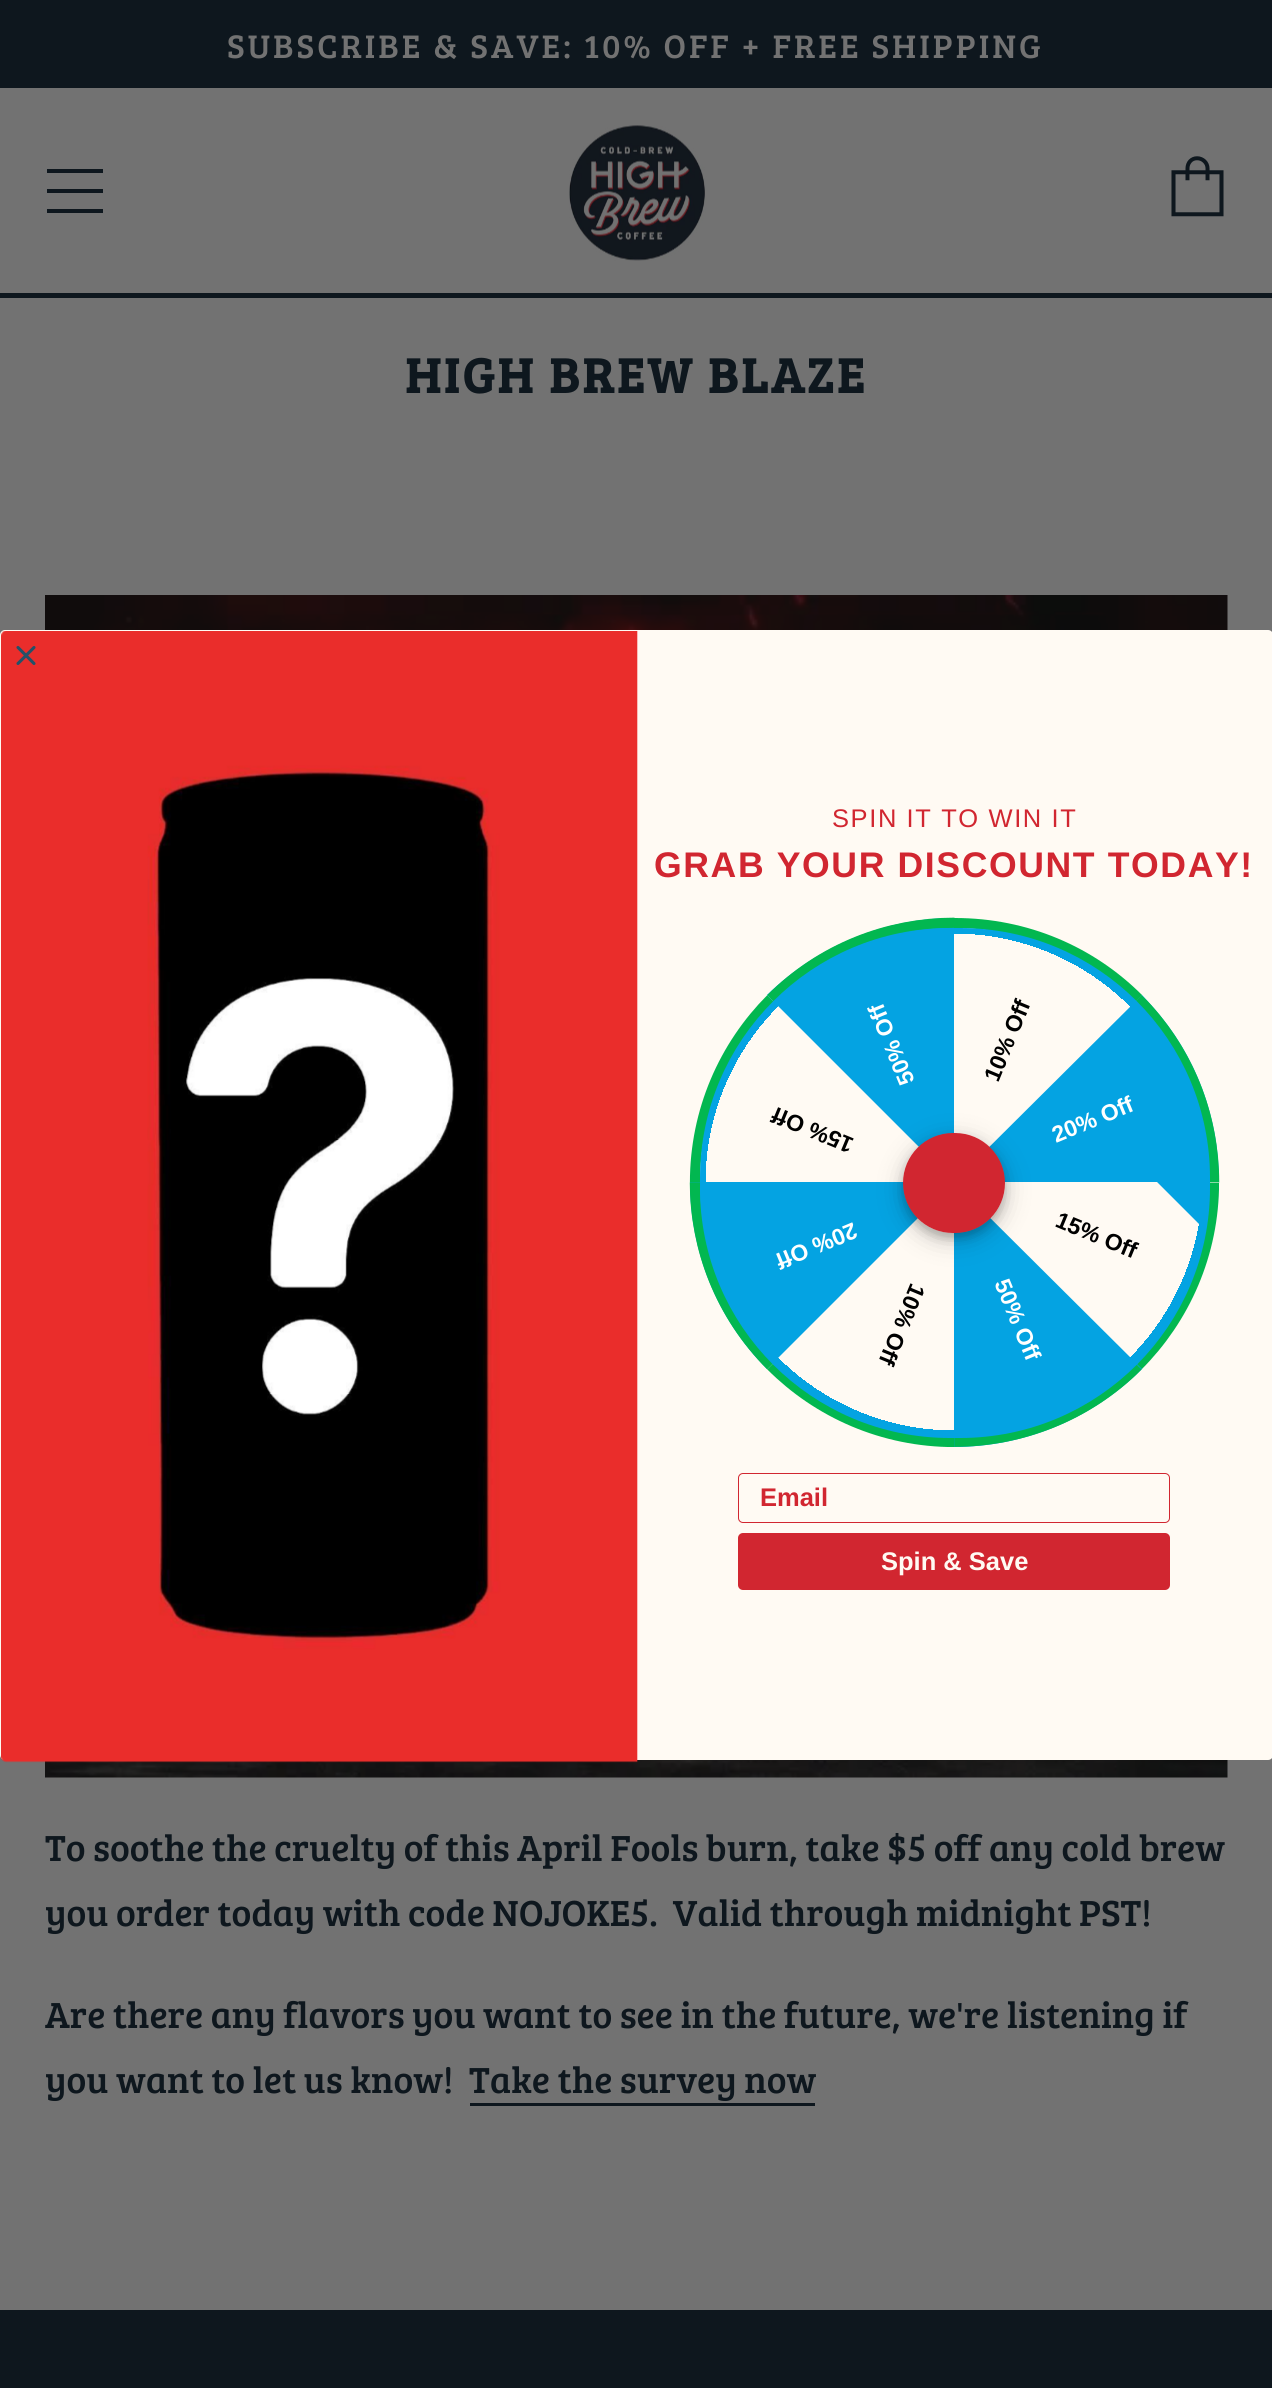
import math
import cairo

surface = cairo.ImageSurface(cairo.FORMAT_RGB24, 1272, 2388)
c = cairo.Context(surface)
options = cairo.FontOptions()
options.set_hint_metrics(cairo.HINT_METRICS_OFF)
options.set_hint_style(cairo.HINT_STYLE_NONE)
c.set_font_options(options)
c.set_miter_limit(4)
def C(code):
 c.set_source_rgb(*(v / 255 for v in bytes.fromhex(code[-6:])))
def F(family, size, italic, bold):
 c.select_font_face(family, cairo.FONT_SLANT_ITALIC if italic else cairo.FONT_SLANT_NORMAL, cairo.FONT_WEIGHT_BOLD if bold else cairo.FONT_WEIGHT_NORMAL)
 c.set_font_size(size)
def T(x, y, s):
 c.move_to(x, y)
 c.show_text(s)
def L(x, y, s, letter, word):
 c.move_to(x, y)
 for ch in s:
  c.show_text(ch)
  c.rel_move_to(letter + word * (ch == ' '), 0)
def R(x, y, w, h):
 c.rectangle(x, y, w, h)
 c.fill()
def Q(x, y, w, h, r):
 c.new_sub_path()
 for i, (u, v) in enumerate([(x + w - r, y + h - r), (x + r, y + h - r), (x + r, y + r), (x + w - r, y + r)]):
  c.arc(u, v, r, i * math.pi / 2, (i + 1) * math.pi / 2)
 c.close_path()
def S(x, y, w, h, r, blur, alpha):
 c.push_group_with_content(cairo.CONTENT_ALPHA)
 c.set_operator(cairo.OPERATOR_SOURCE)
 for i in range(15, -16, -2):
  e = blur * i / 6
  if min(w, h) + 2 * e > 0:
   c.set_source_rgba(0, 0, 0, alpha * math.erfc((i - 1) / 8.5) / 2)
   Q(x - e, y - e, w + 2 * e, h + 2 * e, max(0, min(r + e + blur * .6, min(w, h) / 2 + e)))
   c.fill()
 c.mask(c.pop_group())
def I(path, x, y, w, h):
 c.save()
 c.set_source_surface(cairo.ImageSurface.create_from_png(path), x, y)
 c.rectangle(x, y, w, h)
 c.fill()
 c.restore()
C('727272')
c.paint()
C('0e171e')
R(0,0,1272,88)
F('Bree Serif',33.75,0,0)
C('727272')
L(227,58,'SUBSCRIBE & SAVE: 10% OFF + FREE SHIPPING',3.1,0)
C('0e171e')
R(0,293,1272,5)
c.new_path()
c.move_to(47,173)
c.line_to(103,173)
c.line_to(103,169)
c.line_to(47,169)
c.close_path()
c.move_to(47,213)
c.line_to(103,213)
c.line_to(103,209)
c.line_to(47,209)
c.close_path()
c.move_to(47,193)
c.line_to(103,193)
c.line_to(103,189)
c.line_to(47,189)
c.close_path()
c.fill()
I('1.png',569,125,138,136)
I('2.png',1171,156,53,61)
F('Bree Serif',50,0,1)
L(405,393,'HIGH BREW BLAZE',3.1,0)
I('3.png',45,595,1183,1183)
F('Bree Serif',37.5,0,0)
T(45,1861,'To soothe the cruelty of this April Fools burn, take $5 off any cold brew')
T(45,1926,'you order today with code NOJOKE5.  Valid through midnight PST!')
T(45,2028,'Are there any flavors you want to see in the future, we\'re listening if')
T(45,2093,'you want to let us know!')
T(469,2093,'Take the survey now')
R(470,2103,345,3)
C('fffaf3')
Q(0,630,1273,1130,5)
c.fill()
I('4.png',1,631,637,1132)
c.new_path()
c.move_to(18,647.5)
c.line_to(34,663.5)
c.move_to(18,663.5)
c.line_to(34,647.5)
c.close_path()
C('245168')
c.set_line_width(3.1)
c.set_line_cap(cairo.LINE_CAP_ROUND)
c.set_line_join(cairo.LINE_JOIN_ROUND)
c.stroke()
F('Liberation Sans',25.5,0,0)
C('d12630')
L(832,827,'SPIN IT TO WIN IT',1.6,0)
F('Liberation Sans',35.6,0,1)
L(654,877,'GRAB YOUR DISCOUNT TODAY!',1.6,0)
C('02b750')
c.new_path()
c.move_to(955,918)
c.line_to(954,918)
c.line_to(954,928)
c.curve_to(1022,928,1087,955,1135,1002)
c.line_to(1142,995)
c.curve_to(1094,947,1028,918,955,918)
c.close_path()
c.fill()
F('Liberation Sans',23,0,1)
C('000000')
c.save()
c.translate(998,1083)
c.rotate(-67.5 * math.pi / 180)
T(0,0,'10% Off')
c.restore()
C('04a3e2')
c.new_path()
c.move_to(954,1182)
c.line_to(1142,995)
c.line_to(1152,1006)
c.curve_to(1197,1056,1219,1119,1219,1182)
c.close_path()
c.fill()
c.save()
c.new_path()
c.move_to(954.5,1182.5)
c.line_to(1141.5,995)
c.line_to(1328.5,1182.5)
c.line_to(1219,1182.5)
c.close_path()
c.clip()
c.new_path()
c.move_to(1138,998.5)
c.curve_to(1239.5,1100,1239.5,1264.5,1138,1366)
c.curve_to(1036.5,1467,872,1467,771,1366)
c.curve_to(669.5,1264.5,669.5,1100,771,998.5)
c.curve_to(872,897.5,1036.5,897.5,1138,998.5)
c.close_path()
C('02b750')
c.set_line_width(10.2)
c.set_line_cap(cairo.LINE_CAP_BUTT)
c.set_line_join(cairo.LINE_JOIN_MITER)
c.stroke()
c.restore()
C('fffaf3')
c.new_path()
c.move_to(954,1182)
c.line_to(1219,1182)
c.curve_to(1219,1255,1189,1321,1141,1369)
c.close_path()
c.fill()
c.save()
c.new_path()
c.move_to(954.5,1182.5)
c.line_to(1219,1182.5)
c.line_to(1219,1447)
c.line_to(1141.5,1369.5)
c.close_path()
c.clip()
c.new_path()
c.move_to(1214,1182.5)
c.curve_to(1214,1325.5,1097.5,1442,954.5,1442)
c.curve_to(811,1442,695,1325.5,695,1182.5)
c.curve_to(695,1039,811,922.5,954.5,922.5)
c.curve_to(1097.5,922.5,1214,1039,1214,1182.5)
c.close_path()
C('02b750')
c.set_line_width(10.2)
c.set_line_cap(cairo.LINE_CAP_BUTT)
c.set_line_join(cairo.LINE_JOIN_MITER)
c.stroke()
c.restore()
C('000000')
c.save()
c.translate(1054,1226)
c.rotate(22.5 * math.pi / 180)
T(0,0,'15% Off')
c.restore()
C('04a3e2')
c.new_path()
c.move_to(954,1182)
c.line_to(1142,1369)
c.curve_to(1092,1419,1024,1447,954,1447)
c.close_path()
c.fill()
c.save()
c.new_path()
c.move_to(954.5,1182.5)
c.line_to(1141.5,1369.5)
c.line_to(954.5,1556.5)
c.line_to(954.5,1447)
c.close_path()
c.clip()
c.new_path()
c.move_to(1138,1366)
c.curve_to(1036.5,1467,872,1467,771,1366)
c.curve_to(669.5,1264.5,669.5,1100,771,998.5)
c.curve_to(872,897.5,1036.5,897.5,1138,998.5)
c.curve_to(1239.5,1100,1239.5,1264.5,1138,1366)
c.close_path()
C('02b750')
c.set_line_width(10.2)
c.set_line_cap(cairo.LINE_CAP_BUTT)
c.set_line_join(cairo.LINE_JOIN_MITER)
c.stroke()
c.restore()
c.save()
c.new_path()
c.move_to(954.5,1182.5)
c.line_to(954.5,1447)
c.line_to(689.5,1447)
c.line_to(767,1369.5)
c.close_path()
c.clip()
c.new_path()
c.move_to(954.5,1442)
c.curve_to(811,1442,695,1325.5,695,1182.5)
c.curve_to(695,1039,811,922.5,954.5,922.5)
c.curve_to(1097.5,922.5,1214,1039,1214,1182.5)
c.curve_to(1214,1325.5,1097.5,1442,954.5,1442)
c.close_path()
C('02b750')
c.set_line_width(10.2)
c.set_line_cap(cairo.LINE_CAP_BUTT)
c.set_line_join(cairo.LINE_JOIN_MITER)
c.stroke()
c.restore()
C('000000')
c.save()
c.translate(911,1282)
c.rotate(112.5 * math.pi / 180)
T(0,0,'10% Off')
c.restore()
C('04a3e2')
c.new_path()
c.move_to(767,1369)
c.line_to(954,1182)
c.line_to(690,1182)
c.curve_to(690,1250,716,1318,767,1369)
c.close_path()
c.fill()
c.save()
c.new_path()
c.move_to(954.5,1182.5)
c.line_to(767,1369.5)
c.line_to(580,1182.5)
c.line_to(689.5,1182.5)
c.close_path()
c.clip()
c.new_path()
c.move_to(771,1366)
c.curve_to(669.5,1264.5,669.5,1100,771,998.5)
c.curve_to(872,897.5,1036.5,897.5,1138,998.5)
c.curve_to(1239.5,1100,1239.5,1264.5,1138,1366)
c.curve_to(1036.5,1467,872,1467,771,1366)
c.close_path()
C('02b750')
c.set_line_width(10.2)
c.set_line_cap(cairo.LINE_CAP_BUTT)
c.set_line_join(cairo.LINE_JOIN_MITER)
c.stroke()
c.restore()
c.save()
c.new_path()
c.move_to(954.5,1182.5)
c.line_to(689.5,1182.5)
c.line_to(689.5,917.5)
c.line_to(767,995)
c.close_path()
c.clip()
c.new_path()
c.move_to(695,1182.5)
c.curve_to(695,1039,811,922.5,954.5,922.5)
c.curve_to(1097.5,922.5,1214,1039,1214,1182.5)
c.curve_to(1214,1325.5,1097.5,1442,954.5,1442)
c.curve_to(811,1442,695,1325.5,695,1182.5)
c.close_path()
C('02b750')
c.set_line_width(10.2)
c.set_line_cap(cairo.LINE_CAP_BUTT)
c.set_line_join(cairo.LINE_JOIN_MITER)
c.stroke()
c.restore()
C('000000')
c.save()
c.translate(855,1139)
c.rotate(-157.5 * math.pi / 180)
T(0,0,'15% Off')
c.restore()
C('04a3e2')
c.new_path()
c.move_to(954,1182)
c.line_to(954,918)
c.curve_to(885,918,817,946,767,995)
c.close_path()
c.fill()
c.save()
c.new_path()
c.move_to(954.5,1182.5)
c.line_to(767,995)
c.line_to(954.5,808)
c.line_to(954.5,917.5)
c.close_path()
c.clip()
c.new_path()
c.move_to(771,998.5)
c.curve_to(872,897.5,1036.5,897.5,1138,998.5)
c.curve_to(1239.5,1100,1239.5,1264.5,1138,1366)
c.curve_to(1036.5,1467,872,1467,771,1366)
c.curve_to(669.5,1264.5,669.5,1100,771,998.5)
c.close_path()
C('02b750')
c.set_line_width(10.2)
c.set_line_cap(cairo.LINE_CAP_BUTT)
c.set_line_join(cairo.LINE_JOIN_MITER)
c.stroke()
c.restore()
C('ffffff')
c.save()
c.translate(915,1081)
c.rotate(-112.5 * math.pi / 180)
T(0,0,'50% Off')
c.restore()
c.save()
c.translate(1056,1143)
c.rotate(-22.5 * math.pi / 180)
T(0,0,'20% Off')
c.restore()
c.save()
c.translate(853,1222)
c.rotate(157.5 * math.pi / 180)
T(0,0,'20% Off')
c.restore()
c.save()
c.translate(994,1283)
c.rotate(67.5 * math.pi / 180)
T(0,0,'50% Off')
c.restore()
c.save()
c.set_fill_rule(cairo.FILL_RULE_EVEN_ODD)
c.new_path()
c.move_to(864,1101)
c.line_to(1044,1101)
c.line_to(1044,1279)
c.line_to(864,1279)
c.close_path()
c.move_to(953,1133)
c.line_to(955,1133)
c.curve_to(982.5,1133,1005,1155.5,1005,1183)
c.curve_to(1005,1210.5,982.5,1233,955,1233)
c.line_to(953,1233)
c.curve_to(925.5,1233,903,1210.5,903,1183)
c.curve_to(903,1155.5,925.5,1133,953,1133)
c.close_path()
c.clip()
C('000000')
S(903,1140,102,100,50,12.5,.2)
c.restore()
C('000000')
S(903,1138,102,100,50,5,.2)
C('d12630')
Q(903,1133,102,100,50)
c.fill()
C('04a3e2')
c.new_path()
c.move_to(1208,1149)
c.curve_to(1207,1145,1204,1141,1201,1138)
c.line_to(1157,1182)
c.line_to(1202,1227)
c.curve_to(1205,1225,1207,1221,1208,1217)
c.close_path()
c.fill()
gradient = cairo.RadialGradient(954,1182,0,954,1182,360)
gradient.add_color_stop_rgba(.69,0.016,0.639,0.886,0)
gradient.add_color_stop_rgba(.69,0.016,0.639,0.886,1)
c.set_source(gradient)
Q(700,928,510,510,250)
c.fill()
Q(738.5,1473.5,431,49,4.5)
C('d12630')
c.set_line_width(1)
c.set_line_cap(cairo.LINE_CAP_BUTT)
c.set_line_join(cairo.LINE_JOIN_MITER)
c.stroke()
F('Liberation Sans',25.5,0,1)
T(760,1506,'Email')
Q(738,1533,432,57,5)
c.fill()
C('fffaf3')
T(881,1570,'Spin & Save')
C('0e171e')
R(0,2310,1272,78)
surface.write_to_png('o.png')
